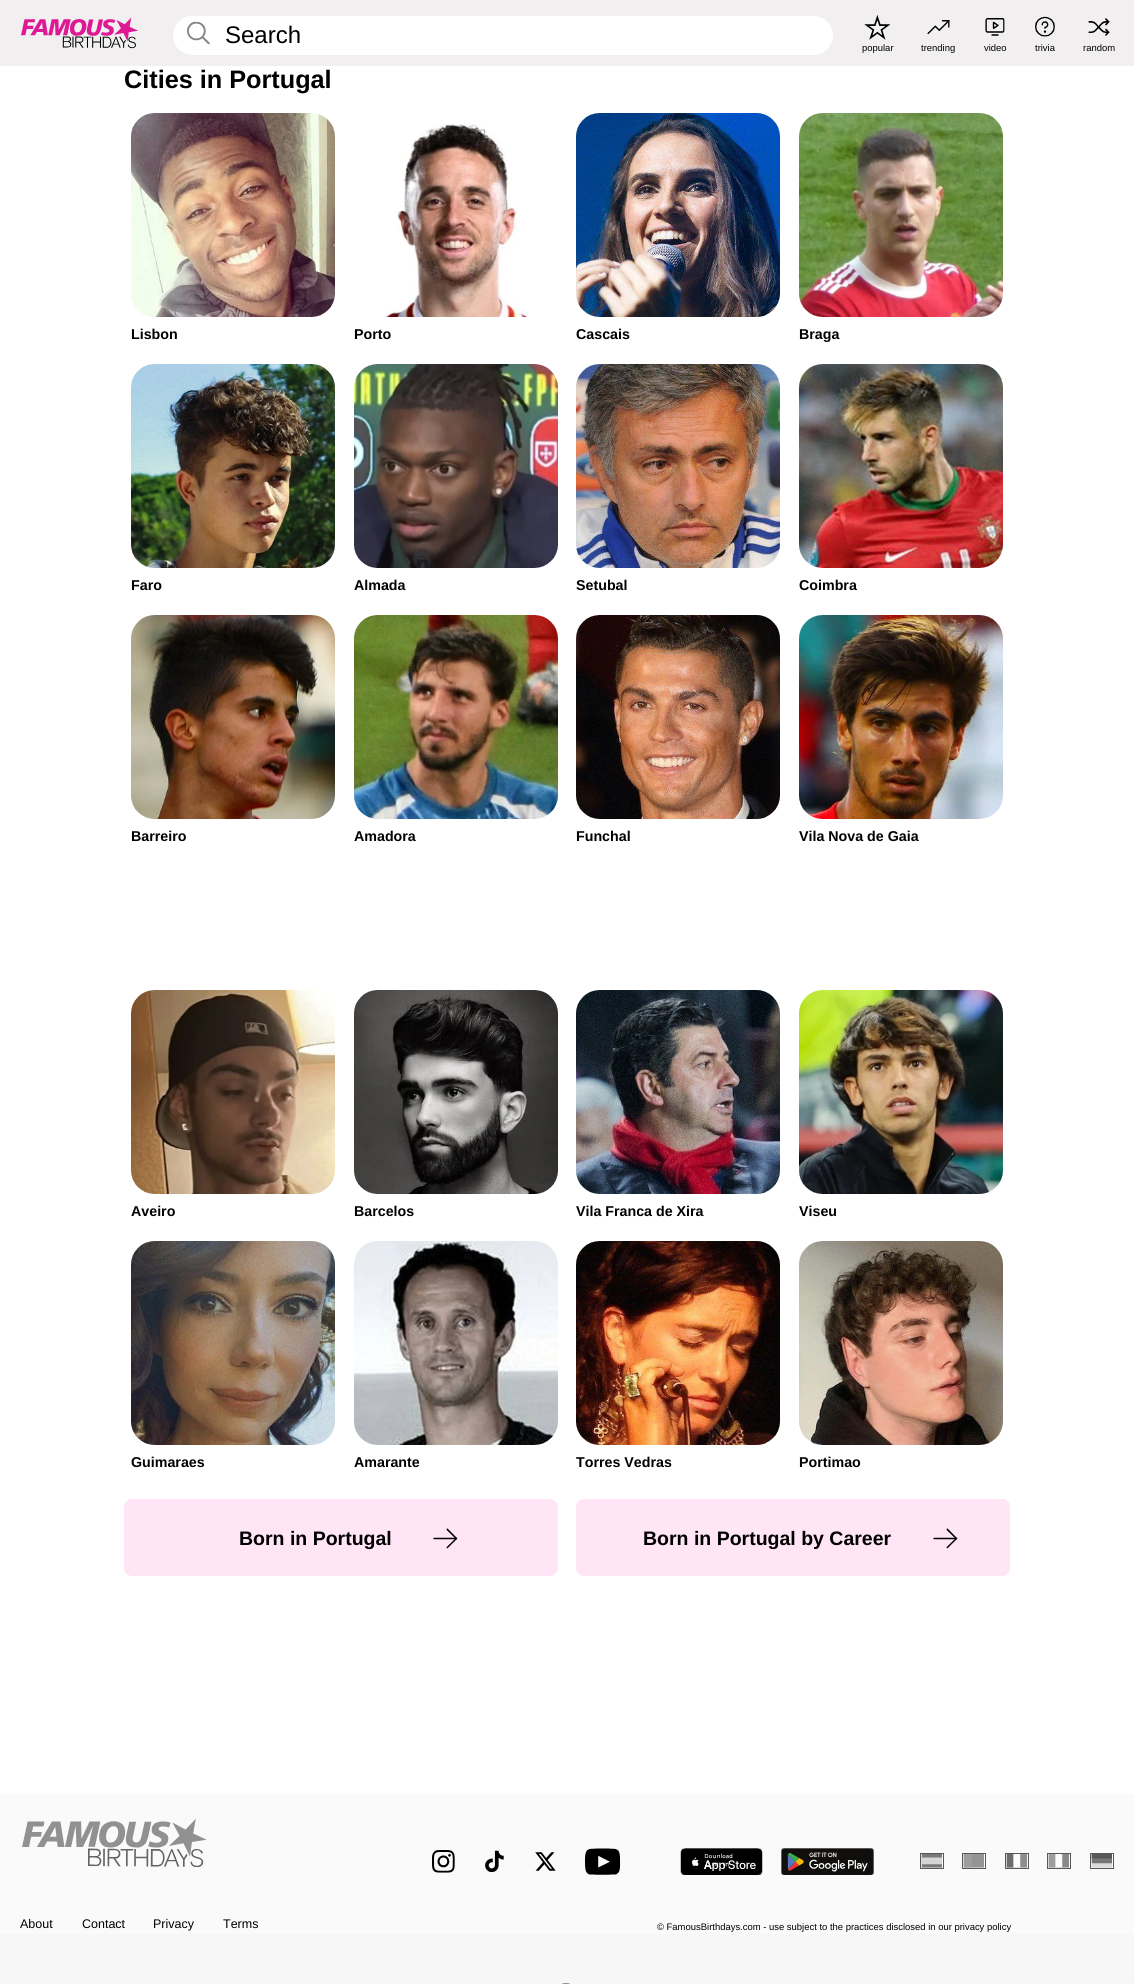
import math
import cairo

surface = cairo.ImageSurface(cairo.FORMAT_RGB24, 1134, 1984)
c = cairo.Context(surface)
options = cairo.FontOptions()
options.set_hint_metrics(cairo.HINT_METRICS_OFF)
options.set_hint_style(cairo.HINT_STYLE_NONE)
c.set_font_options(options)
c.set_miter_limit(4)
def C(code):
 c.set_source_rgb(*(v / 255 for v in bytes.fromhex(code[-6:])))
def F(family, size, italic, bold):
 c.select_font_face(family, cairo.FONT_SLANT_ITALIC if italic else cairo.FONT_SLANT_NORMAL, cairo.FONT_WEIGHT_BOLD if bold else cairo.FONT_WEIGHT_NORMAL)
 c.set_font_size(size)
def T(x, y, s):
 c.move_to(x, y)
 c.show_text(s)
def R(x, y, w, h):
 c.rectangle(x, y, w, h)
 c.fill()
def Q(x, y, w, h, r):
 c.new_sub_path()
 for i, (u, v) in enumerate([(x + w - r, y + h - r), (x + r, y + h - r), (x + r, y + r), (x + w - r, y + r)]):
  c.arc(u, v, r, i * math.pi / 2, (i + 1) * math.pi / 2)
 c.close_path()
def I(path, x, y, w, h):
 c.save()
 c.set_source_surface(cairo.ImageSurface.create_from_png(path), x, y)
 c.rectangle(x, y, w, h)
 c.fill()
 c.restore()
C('ffffff')
c.paint()
C('f1efef')
R(0,0,1134,66)
I('1.png',21,17,117,32)
C('ffffff')
Q(173.5,16.5,659,38,19)
c.fill_preserve()
c.set_line_width(1)
c.stroke()
I('2.png',187,21,23,24)
F('Liberation Sans',24,0,0)
C('000000')
T(225,43,'Search')
I('3.png',864,15,27,25)
F('Liberation Sans',9.45,0,0)
T(862,51,'popular')
I('4.png',927,20,23,14)
T(921,51,'trending')
I('5.png',985,18,20,18)
T(984,51,'video')
I('6.png',1035,16,20,21)
T(1035,51,'trivia')
I('7.png',1088,18,22,18)
T(1083,51,'random')
F('Liberation Sans',25.25,0,1)
T(124,88,'Cities in Portugal')
I('8.png',131,113,204,204)
F('Liberation Sans',14.25,0,1)
T(131,339,'Lisbon')
I('9.png',385,124,143,193)
T(354,339,'Porto')
I('10.png',576,113,204,204)
T(576,339,'Cascais')
I('11.png',799,113,204,204)
T(799,339,'Braga')
I('12.png',131,364,204,204)
T(131,590,'Faro')
I('13.png',354,364,204,204)
T(354,590,'Almada')
I('14.png',576,364,204,204)
T(576,590,'Setubal')
I('15.png',799,364,204,204)
T(799,590,'Coimbra')
I('16.png',131,615,204,204)
T(131,841,'Barreiro')
I('17.png',354,615,204,204)
T(354,841,'Amadora')
I('18.png',576,615,204,204)
T(576,841,'Funchal')
I('19.png',799,615,204,204)
T(799,841,'Vila Nova de Gaia')
I('20.png',131,990,204,204)
T(131,1216,'Aveiro')
I('21.png',354,990,204,204)
T(354,1216,'Barcelos')
I('22.png',576,990,204,204)
T(576,1216,'Vila Franca de Xira')
I('23.png',799,990,204,204)
T(799,1216,'Viseu')
I('24.png',131,1241,204,204)
T(131,1467,'Guimaraes')
I('25.png',354,1241,204,204)
T(354,1467,'Amarante')
I('26.png',576,1241,204,204)
T(576,1467,'Torres Vedras')
I('27.png',799,1241,204,204)
T(799,1467,'Portimao')
C('ffe5f5')
Q(124,1499,434,77,8)
c.fill()
F('Liberation Sans',19.5,0,1)
C('000000')
T(239,1545,'Born in Portugal')
I('28.png',433,1528,25,21)
C('ffe5f5')
Q(576,1499,434,77,8)
c.fill()
C('000000')
T(643,1545,'Born in Portugal by Career')
I('28.png',933,1528,25,21)
C('fafafa')
R(0,1794,1134,140)
C('f7f7f7')
R(0,1934,1134,46)
I('29.png',22,1819,185,48)
I('30.png',432,1850,23,23)
I('31.png',485,1850,19,22)
I('32.png',535,1852,21,19)
I('33.png',585,1848,36,27)
I('34.png',680,1848,83,27)
I('35.png',781,1848,93,27)
c.rectangle(920.5,1853.5,23,15)
C('585858')
c.stroke()
I('36.png',921,1854,21,14)
c.rectangle(962.5,1853.5,23,15)
c.stroke()
I('37.png',963,1854,21,14)
c.rectangle(1005.5,1853.5,23,15)
c.stroke()
I('38.png',1006,1854,21,14)
c.rectangle(1047.5,1853.5,23,15)
c.stroke()
I('39.png',1048,1854,21,14)
c.rectangle(1090.5,1853.5,23,15)
c.stroke()
I('40.png',1091,1854,21,14)
F('Liberation Sans',12.5,0,0)
C('000000')
T(20,1928,'About')
T(82,1928,'Contact')
T(153,1928,'Privacy')
T(223,1928,'Terms')
F('Liberation Sans',9.45,0,0)
T(657,1930,'© FamousBirthdays.com - use subject to the practices disclosed in our privacy policy')
C('f7f7f7')
R(0,1981,1134,3)
C('f5f5f5')
R(0,1980,1134,1)
Q(555.5,1983.5,21,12,10.5)
C('888888')
c.stroke()
surface.write_to_png('o.png')
